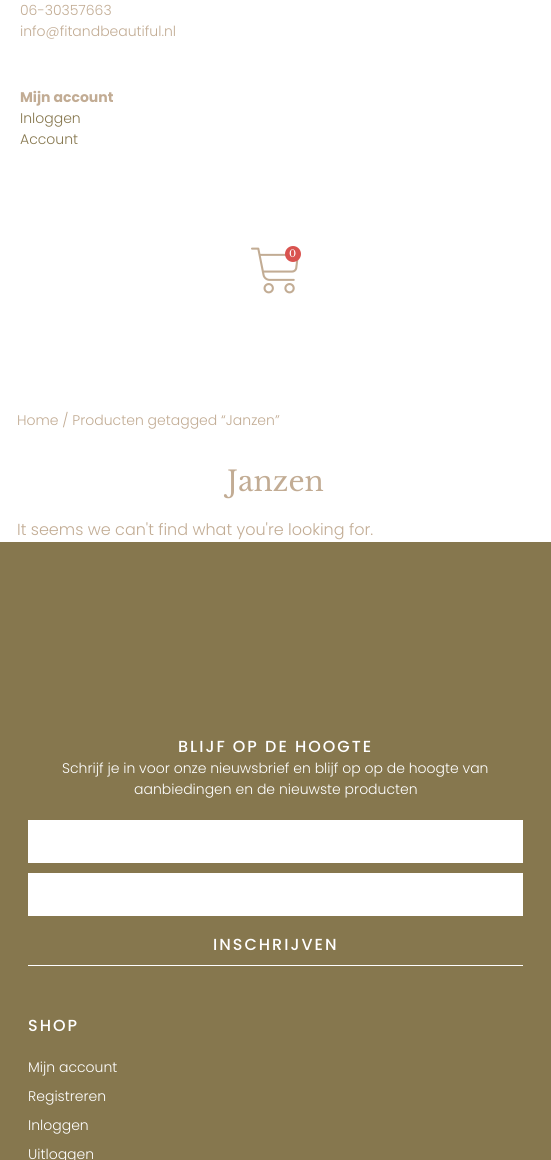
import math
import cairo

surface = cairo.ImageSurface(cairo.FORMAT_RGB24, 551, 1160)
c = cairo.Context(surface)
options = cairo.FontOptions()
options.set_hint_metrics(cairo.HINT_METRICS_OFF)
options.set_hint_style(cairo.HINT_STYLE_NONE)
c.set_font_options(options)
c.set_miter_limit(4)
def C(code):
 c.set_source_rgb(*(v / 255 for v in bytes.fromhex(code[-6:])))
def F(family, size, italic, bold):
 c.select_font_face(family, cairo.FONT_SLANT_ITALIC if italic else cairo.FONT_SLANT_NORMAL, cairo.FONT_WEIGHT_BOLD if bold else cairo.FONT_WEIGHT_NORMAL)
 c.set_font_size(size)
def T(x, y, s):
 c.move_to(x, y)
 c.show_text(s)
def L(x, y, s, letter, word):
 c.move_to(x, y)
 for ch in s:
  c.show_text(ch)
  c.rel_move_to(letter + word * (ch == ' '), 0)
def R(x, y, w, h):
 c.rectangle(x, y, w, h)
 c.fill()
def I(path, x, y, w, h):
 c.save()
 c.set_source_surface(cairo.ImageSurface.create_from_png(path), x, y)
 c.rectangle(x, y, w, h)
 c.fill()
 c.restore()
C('ffffff')
c.paint()
F('Poppins Light',14,0,0)
C('c2ac94')
T(20,15,'06-30357663')
T(20,36,'info@fitandbeautiful.nl')
F('Poppins',14,0,1)
T(20,102,'Mijn account')
F('Poppins Light',14,0,0)
C('86774e')
T(20,123,'Inloggen')
T(20,144,'Account')
I('1.png',251,247,48,47)
C('d9534f')
c.arc(293,254,8,0,2 * math.pi)
c.fill()
F('Libre Baskerville',10,0,0)
C('ffffff')
T(289,257,'0')
F('Poppins Light',14,0,0)
C('c2ac94')
T(17,425,'Home / Producten getagged “Janzen”')
F('Libre Baskerville',28,0,0)
T(227,491,'Janzen')
F('Poppins Light',16,0,0)
T(17,535,'It seems we can\'t find what you\'re looking for.')
C('86774e')
R(0,542,551,618)
F('Poppins Medium',16,0,0)
C('ffffff')
L(178,752,'BLIJF OP DE HOOGTE',2,0)
F('Poppins Light',14,0,0)
T(62,773,'Schrijf je in voor onze nieuwsbrief en blijf op op de hoogte van')
T(134,794,'aanbiedingen en de nieuwste producten')
R(28,820,495,43)
R(28,873,495,43)
R(28,965,495,1)
F('Poppins Medium',16,0,0)
L(213,950,'INSCHRIJVEN',2,0)
L(28,1031,'SHOP',2,0)
F('Poppins Light',14,0,0)
T(28,1072,'Mijn account')
T(28,1101,'Registreren')
T(28,1130,'Inloggen')
T(28,1159,'Uitloggen')
surface.write_to_png('o.png')
